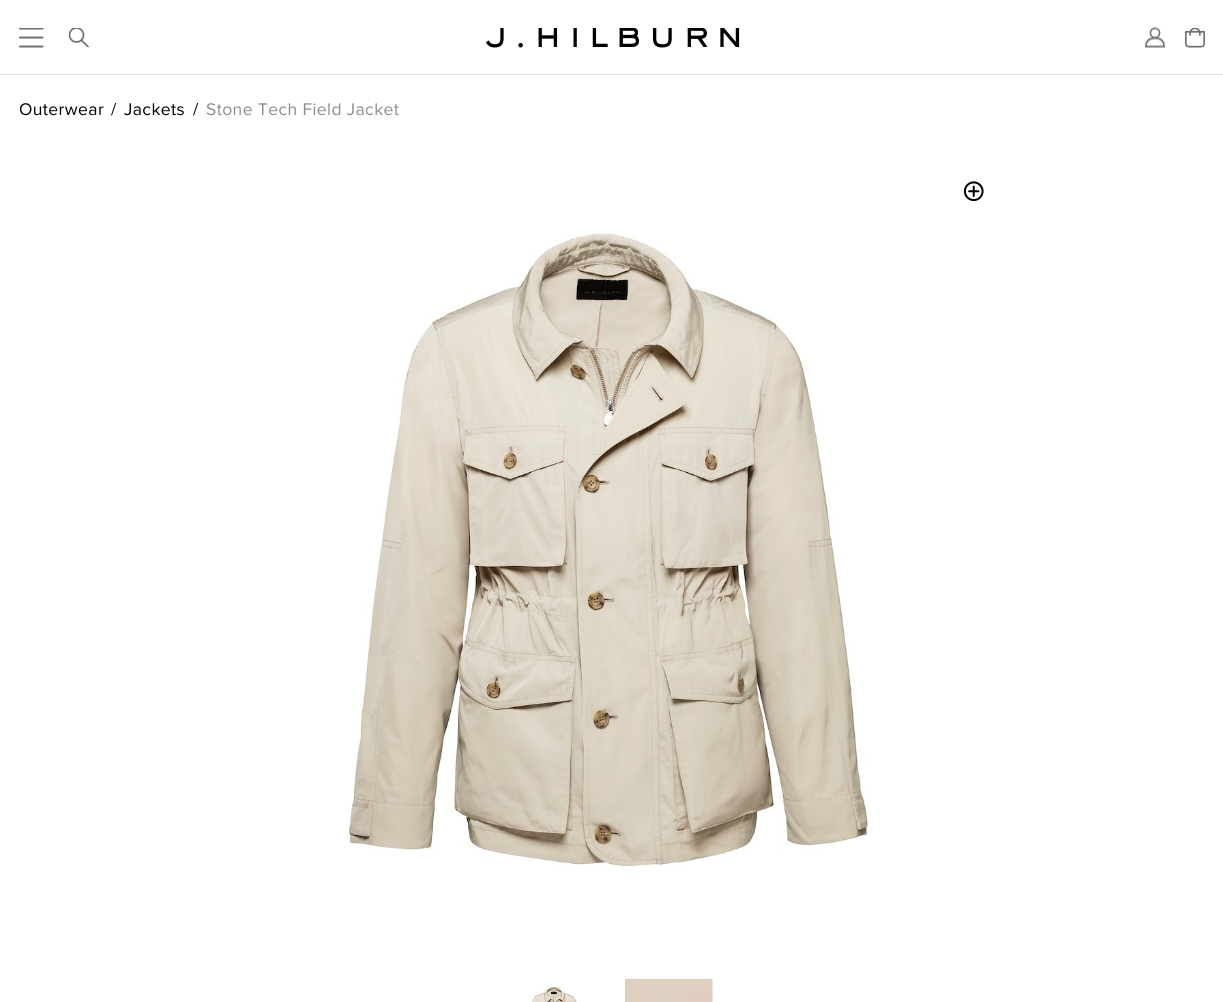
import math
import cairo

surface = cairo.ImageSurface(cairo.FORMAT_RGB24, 1223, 1002)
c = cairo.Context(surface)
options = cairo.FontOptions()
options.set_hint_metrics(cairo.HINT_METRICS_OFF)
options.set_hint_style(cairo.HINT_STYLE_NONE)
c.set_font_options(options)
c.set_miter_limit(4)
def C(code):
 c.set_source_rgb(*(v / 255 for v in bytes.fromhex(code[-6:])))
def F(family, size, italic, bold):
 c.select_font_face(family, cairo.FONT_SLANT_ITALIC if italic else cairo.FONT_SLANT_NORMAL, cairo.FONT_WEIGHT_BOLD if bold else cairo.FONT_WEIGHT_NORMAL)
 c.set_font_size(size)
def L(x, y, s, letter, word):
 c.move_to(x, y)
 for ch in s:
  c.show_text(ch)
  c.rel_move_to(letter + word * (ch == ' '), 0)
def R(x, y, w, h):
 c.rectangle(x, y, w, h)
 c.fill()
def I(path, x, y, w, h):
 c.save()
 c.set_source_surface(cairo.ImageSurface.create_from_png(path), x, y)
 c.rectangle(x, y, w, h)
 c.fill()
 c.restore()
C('ffffff')
c.paint()
C('dedede')
R(0,74,1223,1)
c.save()
c.rectangle(19,28,25,20)
c.clip()
c.new_path()
c.move_to(20,28.5)
c.line_to(42.5,28.5)
c.move_to(20,37.5)
c.line_to(42.5,37.5)
c.move_to(20,46.5)
c.line_to(42.5,46.5)
C('707070')
c.set_line_cap(cairo.LINE_CAP_ROUND)
c.set_line_join(cairo.LINE_JOIN_ROUND)
c.stroke()
c.restore()
c.new_path()
c.move_to(81.5,40.5)
c.line_to(88,46.5)
C('707070')
c.set_line_width(1.7)
c.set_line_cap(cairo.LINE_CAP_ROUND)
c.set_line_join(cairo.LINE_JOIN_ROUND)
c.stroke()
c.save()
c.rectangle(69,28,20,20)
c.clip()
c.arc(76.5,35,7,0,2 * math.pi)
c.set_line_cap(cairo.LINE_CAP_BUTT)
c.set_line_join(cairo.LINE_JOIN_MITER)
c.stroke()
c.restore()
I('1.png',486,28,254,20)
I('2.png',1145,27,20,21)
I('3.png',1185,28,20,20)
F('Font',17.5,0,0)
C('000000')
L(19,115,'Outerwear',.4,0)
L(111,115,'/',.4,0)
L(124,115,'Jackets',.4,0)
L(193,115,'/',.4,0)
C('8c8c8c')
L(206,115,'Stone Tech Field Jacket',.4,0)
I('4.png',343,233,527,639)
I('5.png',963,181,21,21)
I('6.png',531,985,46,17)
I('7.png',625,978,88,24)
surface.write_to_png('o.png')
